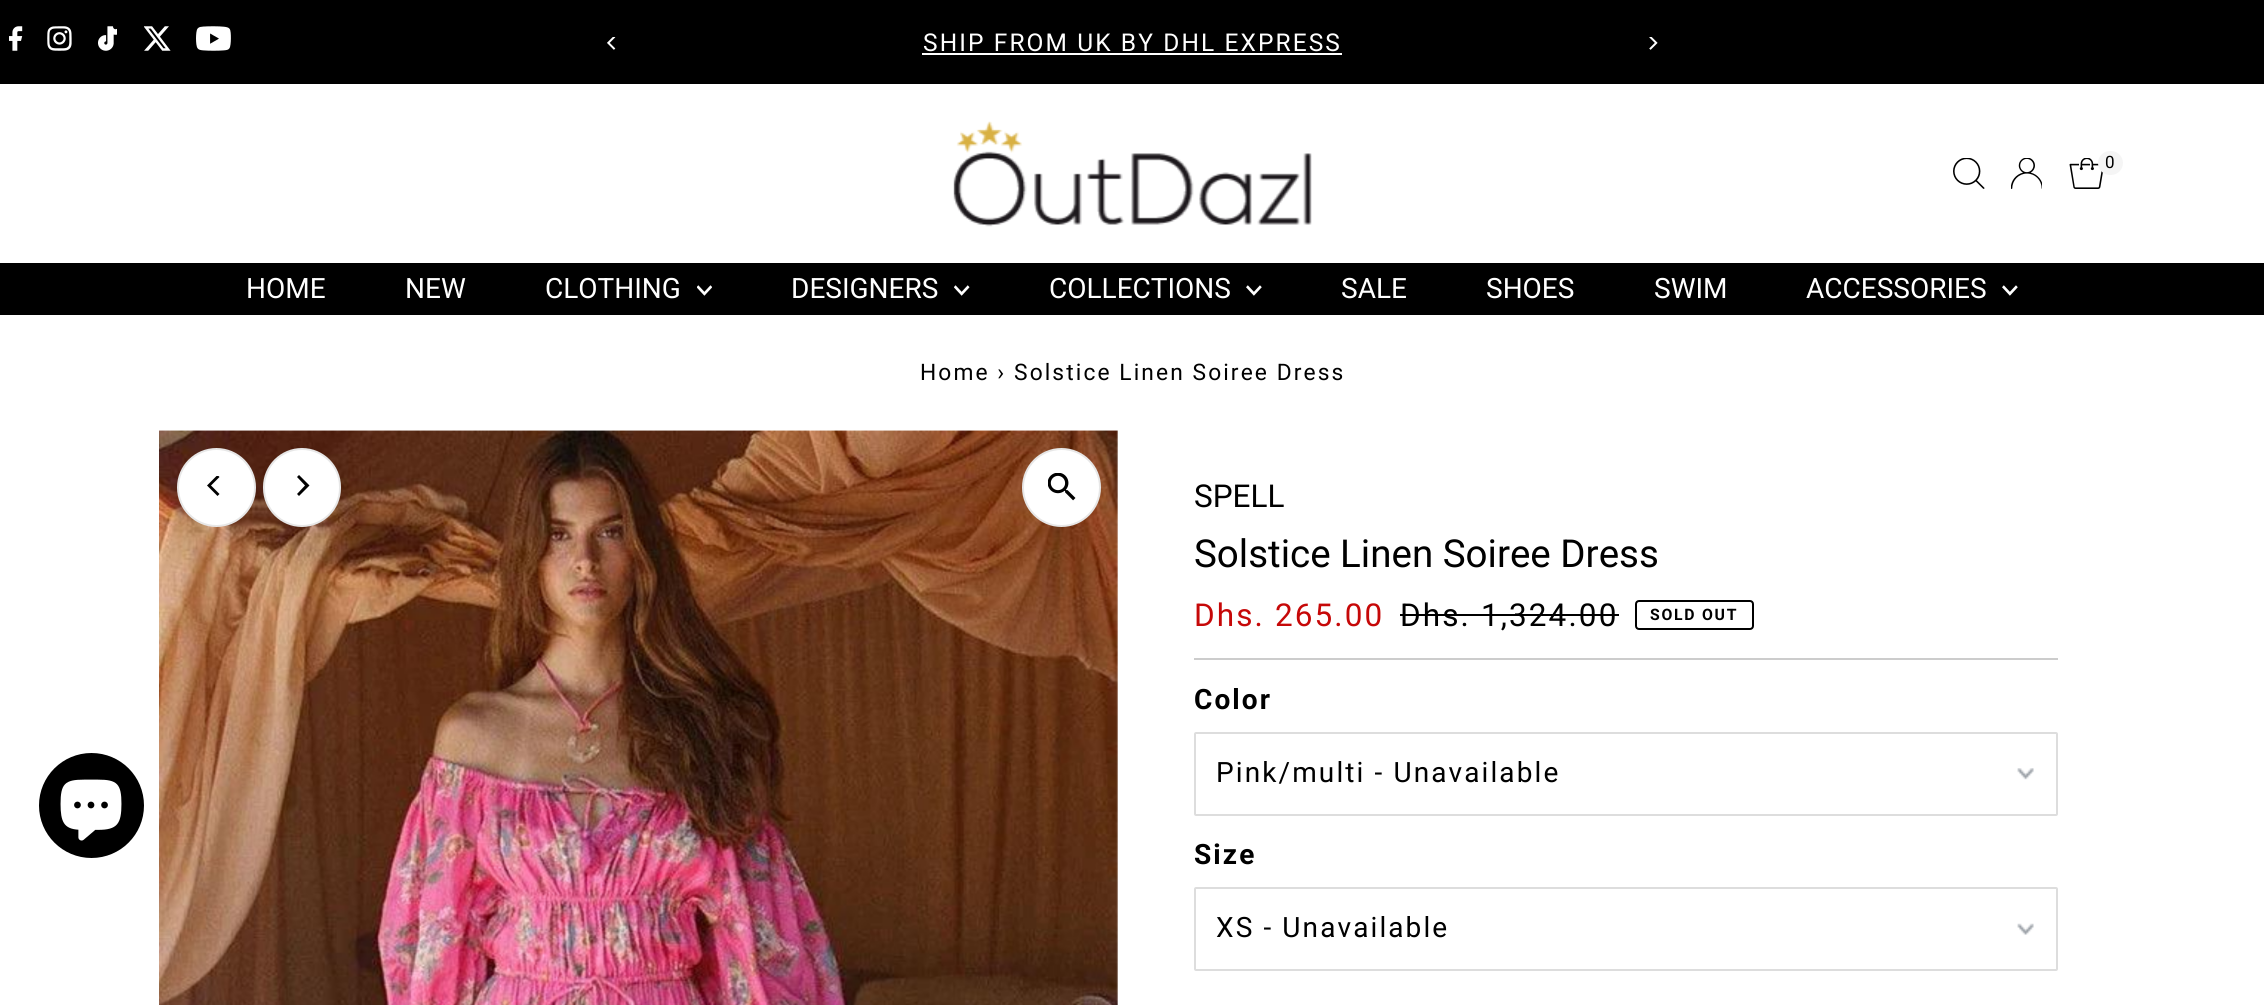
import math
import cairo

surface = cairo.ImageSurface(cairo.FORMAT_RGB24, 2264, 1005)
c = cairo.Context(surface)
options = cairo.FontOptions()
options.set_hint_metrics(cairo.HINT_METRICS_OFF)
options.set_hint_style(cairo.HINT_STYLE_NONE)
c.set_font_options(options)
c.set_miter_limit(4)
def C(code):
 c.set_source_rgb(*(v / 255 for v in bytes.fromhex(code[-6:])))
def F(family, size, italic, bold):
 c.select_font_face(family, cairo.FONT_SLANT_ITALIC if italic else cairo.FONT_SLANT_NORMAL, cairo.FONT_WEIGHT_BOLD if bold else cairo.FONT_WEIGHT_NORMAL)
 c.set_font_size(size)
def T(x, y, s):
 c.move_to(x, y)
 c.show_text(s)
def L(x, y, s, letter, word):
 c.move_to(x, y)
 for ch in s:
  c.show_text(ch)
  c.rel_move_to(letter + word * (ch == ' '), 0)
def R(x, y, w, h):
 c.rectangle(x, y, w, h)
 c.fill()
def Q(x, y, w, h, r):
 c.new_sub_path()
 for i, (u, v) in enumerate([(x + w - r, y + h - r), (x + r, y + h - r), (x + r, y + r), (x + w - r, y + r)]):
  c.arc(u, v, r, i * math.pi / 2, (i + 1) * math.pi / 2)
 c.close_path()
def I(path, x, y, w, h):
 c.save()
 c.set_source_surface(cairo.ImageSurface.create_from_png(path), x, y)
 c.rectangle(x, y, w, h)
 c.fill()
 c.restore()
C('ffffff')
c.paint()
C('000000')
c.arc(91.5,805.5,52.5,0,2 * math.pi)
c.fill()
I('1.png',60,779,62,62)
R(0,0,2264,84)
I('2.png',9,26,14,25)
I('3.png',47,26,25,25)
I('4.png',98,26,19,25)
I('5.png',144,26,27,25)
I('6.png',196,26,35,25)
I('7.png',607,37,9,13)
F('Roboto',24.5,0,0)
C('ffffff')
L(923,51,'SHIP FROM UK BY DHL EXPRESS',2.1,0)
R(922,53,420,2)
I('8.png',1649,37,9,13)
I('9.png',953,121,359,106)
I('10.png',1953,158,32,31)
I('11.png',2011,158,31,31)
I('12.png',2069,158,34,31)
C('f5f5f5')
Q(2098,151,25,24,12)
c.fill()
F('Roboto',17,0,0)
C('000000')
L(2105,168,'0',2.1,0)
R(0,263,2264,52)
F('Roboto',28,0,0)
C('ffffff')
T(246,298,'HOME')
T(405,298,'NEW')
T(545,298,'CLOTHING')
I('13.png',697,285,15,11)
T(791,298,'DESIGNERS')
I('14.png',954,285,16,11)
T(1049,298,'COLLECTIONS')
I('15.png',1246,285,16,11)
T(1341,298,'SALE')
T(1486,298,'SHOES')
T(1654,298,'SWIM')
T(1806,298,'ACCESSORIES')
I('15.png',2002,285,16,11)
F('Roboto',22.75,0,0)
C('000000')
L(920,380,'Home › Solstice Linen Soiree Dress',2.1,0)
I('16.png',159,430,959,575)
C('ffffff')
c.arc(1061.5,487.5,38.5,0,2 * math.pi)
c.fill_preserve()
C('e7e7e7')
c.stroke()
I('17.png',1048,473,28,28)
C('ffffff')
c.arc(216.5,487.5,38.5,0,2 * math.pi)
c.fill_preserve()
C('e7e7e7')
c.stroke()
c.save()
c.rectangle(205,476,21,21)
c.clip()
C('000000')
c.new_path()
c.move_to(207,485.5)
c.line_to(217.5,496)
c.line_to(219.5,494)
c.line_to(211,485.5)
c.line_to(219.5,477)
c.line_to(217.5,475)
c.close_path()
c.fill()
c.restore()
C('ffffff')
Q(264,449,76,77,38)
c.fill_preserve()
C('e7e7e7')
c.stroke()
C('000000')
c.new_path()
c.move_to(309.5,485.5)
c.line_to(299,475)
c.line_to(297,477)
c.line_to(305,485.5)
c.line_to(297,494)
c.line_to(299,496)
c.close_path()
c.fill()
C('cccccc')
R(1194,658,864,2)
F('Roboto',31.5,0,0)
C('000000')
T(1194,507,'SPELL')
F('Roboto',38.5,0,0)
T(1194,567,'Solstice Linen Soiree Dress')
F('Roboto',31.5,0,0)
C('c60808')
L(1194,626,'Dhs. 265.00',2.1,0)
C('000000')
L(1400,626,'Dhs. 1,324.00',2.1,0)
R(1400,614,219,2)
Q(1636,601,117,28,3)
c.stroke()
F('Roboto',15.75,0,1)
L(1650,620,'SOLD OUT',1.75,0)
F('Roboto',28,0,1)
L(1194,709,'Color',2.1,0)
I('18.png',2017,768,17,12)
Q(1195,733,862,82,1)
C('dddddd')
c.stroke()
F('Roboto',28,0,0)
C('000000')
L(1216,782,'Pink/multi - Unavailable',2.1,0)
F('Roboto',28,0,1)
L(1194,864,'Size',2.1,0)
I('19.png',2017,923,17,12)
Q(1195,888,862,82,1)
C('dddddd')
c.stroke()
F('Roboto',28,0,0)
C('000000')
L(1216,937,'XS - Unavailable',2.1,0)
surface.write_to_png('o.png')
